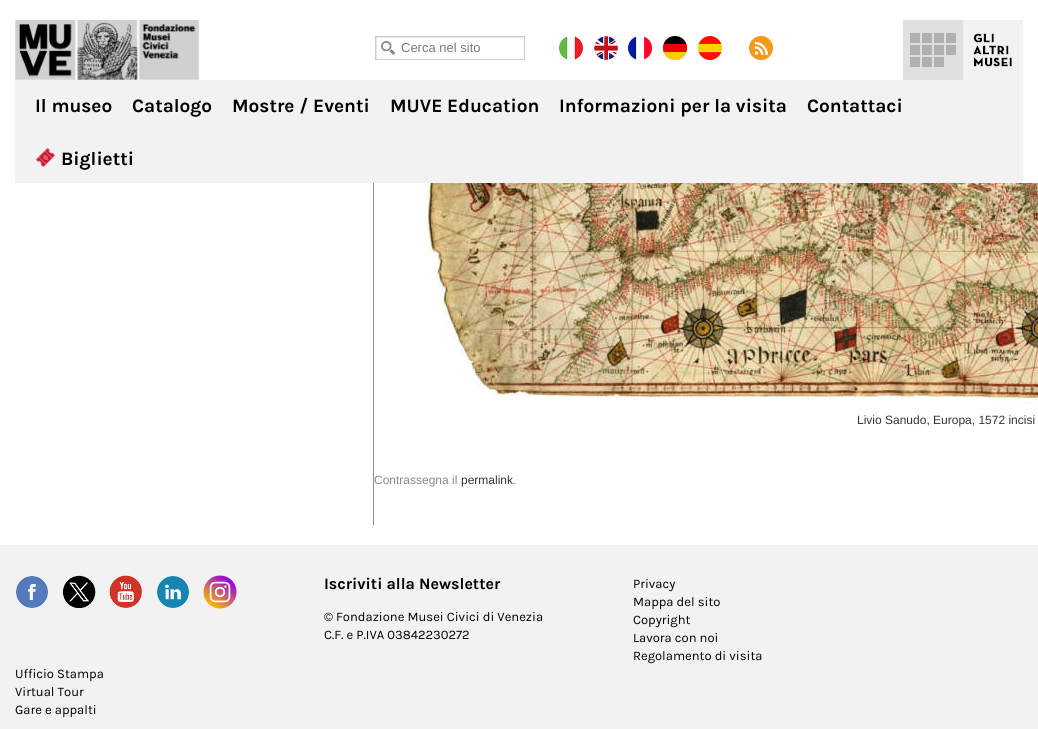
import math
import cairo

surface = cairo.ImageSurface(cairo.FORMAT_RGB24, 1038, 729)
c = cairo.Context(surface)
options = cairo.FontOptions()
options.set_hint_metrics(cairo.HINT_METRICS_OFF)
options.set_hint_style(cairo.HINT_STYLE_NONE)
c.set_font_options(options)
c.set_miter_limit(4)
def C(code):
 c.set_source_rgb(*(v / 255 for v in bytes.fromhex(code[-6:])))
def F(family, size, italic, bold):
 c.select_font_face(family, cairo.FONT_SLANT_ITALIC if italic else cairo.FONT_SLANT_NORMAL, cairo.FONT_WEIGHT_BOLD if bold else cairo.FONT_WEIGHT_NORMAL)
 c.set_font_size(size)
def T(x, y, s):
 c.move_to(x, y)
 c.show_text(s)
def R(x, y, w, h):
 c.rectangle(x, y, w, h)
 c.fill()
def I(path, x, y, w, h):
 c.save()
 c.set_source_surface(cairo.ImageSurface.create_from_png(path), x, y)
 c.rectangle(x, y, w, h)
 c.fill()
 c.restore()
C('ffffff')
c.paint()
I('1.png',15,20,184,60)
I('2.png',381,41,14,14)
c.save()
c.rectangle(376,37,148,22)
c.clip()
C('e6e6e6')
c.set_fill_rule(cairo.FILL_RULE_EVEN_ODD)
c.new_path()
c.move_to(277,-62)
c.line_to(623,-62)
c.line_to(623,158)
c.line_to(277,158)
c.close_path()
c.move_to(377,38)
c.line_to(525,38)
c.line_to(525,60)
c.line_to(377,60)
c.close_path()
c.fill()
c.restore()
c.rectangle(375.5,36.5,149,23)
C('cccccc')
c.set_line_width(1)
c.stroke()
F('Liberation Sans',13,0,0)
C('7a7a7a')
T(401,52,'Cerca nel sito')
I('3.png',559,36,24,24)
I('4.png',594,36,24,24)
I('5.png',628,36,24,24)
I('6.png',663,36,24,24)
I('7.png',698,36,24,24)
I('8.png',749,36,24,24)
C('f2f2f2')
R(1012,20,11,60)
I('9.png',903,20,109,60)
R(15,80,1008,103)
F('Karla',19,0,1)
C('000000')
T(35,112,'Il museo')
T(132,112,'Catalogo')
T(232,112,'Mostre / Eventi')
T(390,112,'MUVE Education')
T(559,112,'Informazioni per la visita')
T(807,112,'Contattaci')
I('10.png',36,148,19,19)
T(61,165,'Biglietti')
C('8d8d8d')
R(373,183,1,342)
I('11.png',424,183,614,222)
F('Liberation Sans',12,0,0)
C('333333')
T(857,424,'Livio Sanudo, Europa, 1572 incisi')
C('888888')
T(374,484,'Contrassegna il')
C('333333')
T(461,484,'permalink')
C('888888')
T(513,484,'.')
C('f2f2f2')
R(0,545,1038,184)
I('12.png',16,576,32,32)
I('13.png',62,575,34,33)
I('14.png',109,575,33,33)
I('15.png',157,576,32,32)
I('16.png',203,575,34,34)
F('Karla',16,0,1)
C('000000')
T(324,589,'Iscriviti alla Newsletter')
F('Karla',13,0,0)
T(324,621,'© Fondazione Musei Civici di Venezia')
T(324,639,'C.F. e P.IVA 03842230272')
T(633,588,'Privacy')
T(633,606,'Mappa del sito')
T(633,624,'Copyright')
T(633,642,'Lavora con noi')
T(633,660,'Regolamento di visita')
T(15,678,'Ufficio Stampa')
T(15,696,'Virtual Tour')
T(15,714,'Gare e appalti')
surface.write_to_png('o.png')
